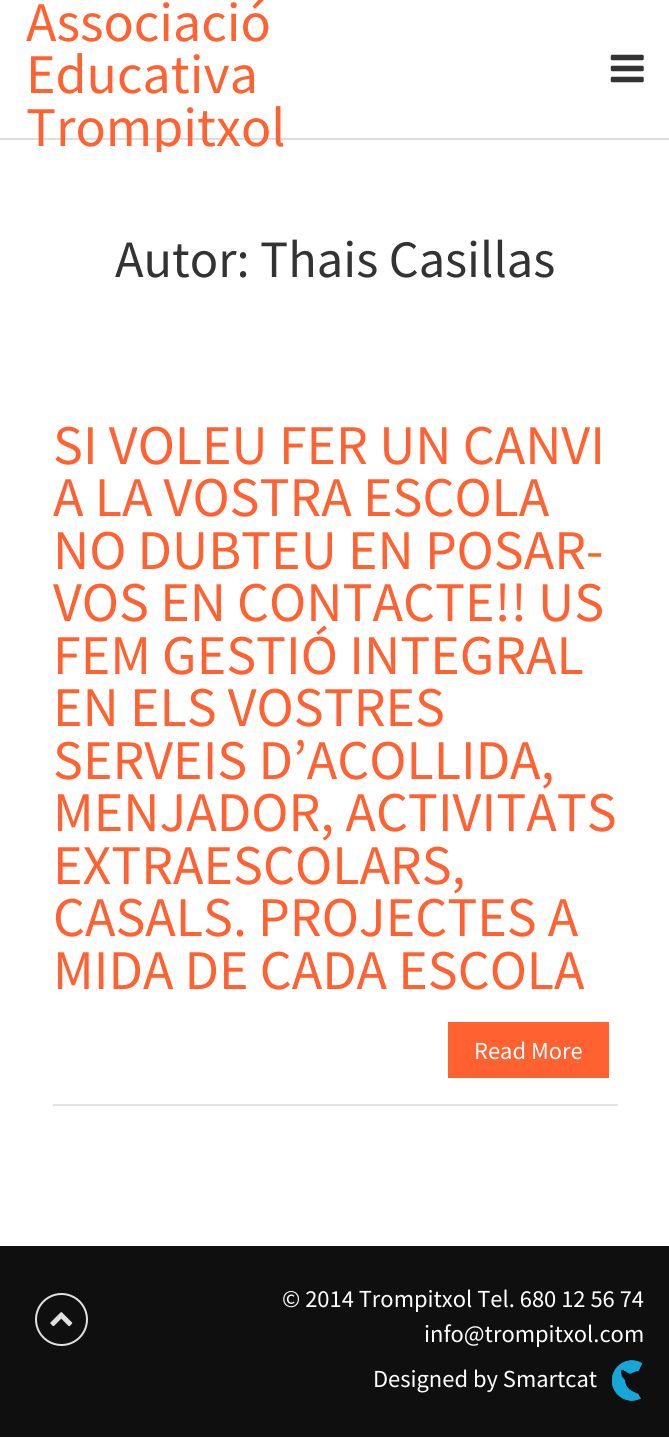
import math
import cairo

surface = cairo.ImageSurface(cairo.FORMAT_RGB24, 669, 1450)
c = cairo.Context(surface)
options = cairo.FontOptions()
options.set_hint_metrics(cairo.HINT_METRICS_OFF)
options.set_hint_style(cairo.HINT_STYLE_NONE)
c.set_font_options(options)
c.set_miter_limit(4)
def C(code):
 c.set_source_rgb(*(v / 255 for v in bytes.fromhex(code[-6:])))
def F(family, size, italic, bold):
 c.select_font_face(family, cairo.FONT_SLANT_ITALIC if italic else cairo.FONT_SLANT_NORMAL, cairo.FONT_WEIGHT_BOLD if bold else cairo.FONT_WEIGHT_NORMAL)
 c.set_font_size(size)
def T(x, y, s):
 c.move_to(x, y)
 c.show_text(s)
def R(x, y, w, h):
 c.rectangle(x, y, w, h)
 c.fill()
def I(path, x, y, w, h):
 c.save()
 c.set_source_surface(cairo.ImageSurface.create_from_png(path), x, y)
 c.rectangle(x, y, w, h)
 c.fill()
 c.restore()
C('ffffff')
c.paint()
C('dddddd')
R(0,138,669,2)
F('Source Sans Pro',56,0,0)
C('ff6131')
T(26,41,'Associació')
T(26,93,'Educativa')
c.save()
c.rectangle(26,0,310,152)
c.clip()
T(26,146,'Trompitxol')
c.restore()
I('1.png',610,54,34,29)
F('Source Sans Pro',52.5,0,0)
C('333333')
T(115,277,'Autor: Thais Casillas')
C('e4e4e4')
R(53,1104,565,2)
F('Source Sans Pro',56,0,0)
C('ff6131')
T(53,464,'SI VOLEU FER UN CANVI')
T(53,516,'A LA VOSTRA ESCOLA')
T(53,569,'NO DUBTEU EN POSAR-')
T(53,621,'VOS EN CONTACTE!! US')
T(53,674,'FEM GESTIÓ INTEGRAL')
T(53,726,'EN ELS VOSTRES')
T(53,779,'SERVEIS D’ACOLLIDA,')
T(53,831,'MENJADOR, ACTIVITATS')
T(53,884,'EXTRAESCOLARS,')
T(53,936,'CASALS. PROJECTES A')
T(53,989,'MIDA DE CADA ESCOLA')
R(448,1022,161,56)
F('Source Sans Pro',24.5,0,0)
C('ffffff')
T(474,1059,'Read More')
C('0f0f0f')
R(0,1246,669,191)
c.new_path()
c.arc(61.5,1319.5,25.5,0,2 * math.pi)
C('e0e0e0')
c.stroke()
I('2.png',50,1312,23,15)
C('ffffff')
T(282,1307,'© 2014 Trompitxol Tel. 680 12 56 74')
T(424,1342,'info@trompitxol.com')
T(373,1387,'Designed by Smartcat')
I('3.png',612,1360,31,41)
surface.write_to_png('o.png')
